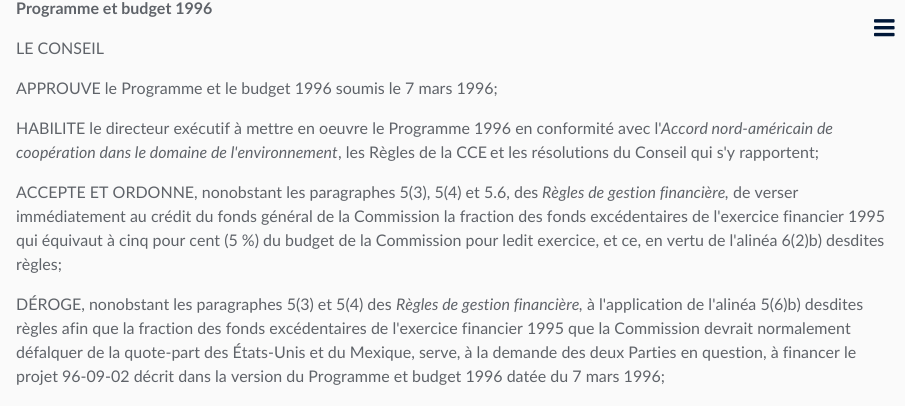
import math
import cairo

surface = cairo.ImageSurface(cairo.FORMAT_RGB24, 905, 406)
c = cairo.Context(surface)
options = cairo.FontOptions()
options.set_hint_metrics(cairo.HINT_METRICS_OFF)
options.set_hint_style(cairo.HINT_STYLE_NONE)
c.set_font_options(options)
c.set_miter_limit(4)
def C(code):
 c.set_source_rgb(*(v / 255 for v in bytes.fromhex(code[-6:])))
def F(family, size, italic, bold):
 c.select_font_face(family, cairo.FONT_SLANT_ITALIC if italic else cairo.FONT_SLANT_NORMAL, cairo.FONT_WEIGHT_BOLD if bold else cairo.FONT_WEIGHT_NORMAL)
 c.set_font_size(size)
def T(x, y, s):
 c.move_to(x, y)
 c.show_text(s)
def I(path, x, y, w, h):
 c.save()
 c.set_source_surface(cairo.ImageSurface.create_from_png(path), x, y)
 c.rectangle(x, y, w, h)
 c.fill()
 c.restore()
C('fafafa')
c.paint()
F('Lato',16,0,1)
C('5f6369')
T(16,14,'Programme et budget 1996')
F('Lato',16,0,0)
T(16,54,'LE CONSEIL')
T(16,94,'APPROUVE le Programme et le budget 1996 soumis le 7 mars 1996;')
T(16,134,'HABILITE le directeur exécutif à mettre en oeuvre le Programme 1996 en conformité avec l\'')
F('Lato',16,1,0)
T(661,134,'Accord nord-américain de')
T(16,158,'coopération dans le domaine de l\'environnement')
F('Lato',16,0,0)
T(338,158,', les Règles de la CCE')
T(490,158,'et les résolutions du Conseil qui s\'y rapportent;')
T(16,198,'ACCEPTE ET ORDONNE, nonobstant les paragraphes 5(3), 5(4) et 5.6, des')
F('Lato',16,1,0)
T(542,198,'Règles de gestion financière,')
F('Lato',16,0,0)
T(733,198,'de verser')
T(16,222,'immédiatement au crédit du fonds général de la Commission la fraction des fonds excédentaires de l\'exercice financier 1995')
T(16,246,'qui équivaut à cinq pour cent (5 %) du budget de la Commission pour ledit exercice, et ce, en vertu de l\'alinéa 6(2)b) desdites')
T(16,270,'règles;')
T(16,310,'DÉROGE, nonobstant les paragraphes 5(3) et 5(4) des')
F('Lato',16,1,0)
T(396,310,'Règles de gestion financière,')
F('Lato',16,0,0)
T(587,310,'à l\'application de l\'alinéa 5(6)b) desdites')
T(16,334,'règles afin que la fraction des fonds excédentaires de l\'exercice financier 1995 que la Commission devrait normalement')
T(16,358,'défalquer de la quote-part des États-Unis et du Mexique, serve, à la demande des deux Parties en question, à financer le')
T(16,382,'projet 96-09-02 décrit dans la version du Programme et budget 1996 datée du 7 mars 1996;')
I('1.png',874,19,21,18)
surface.write_to_png('o.png')
